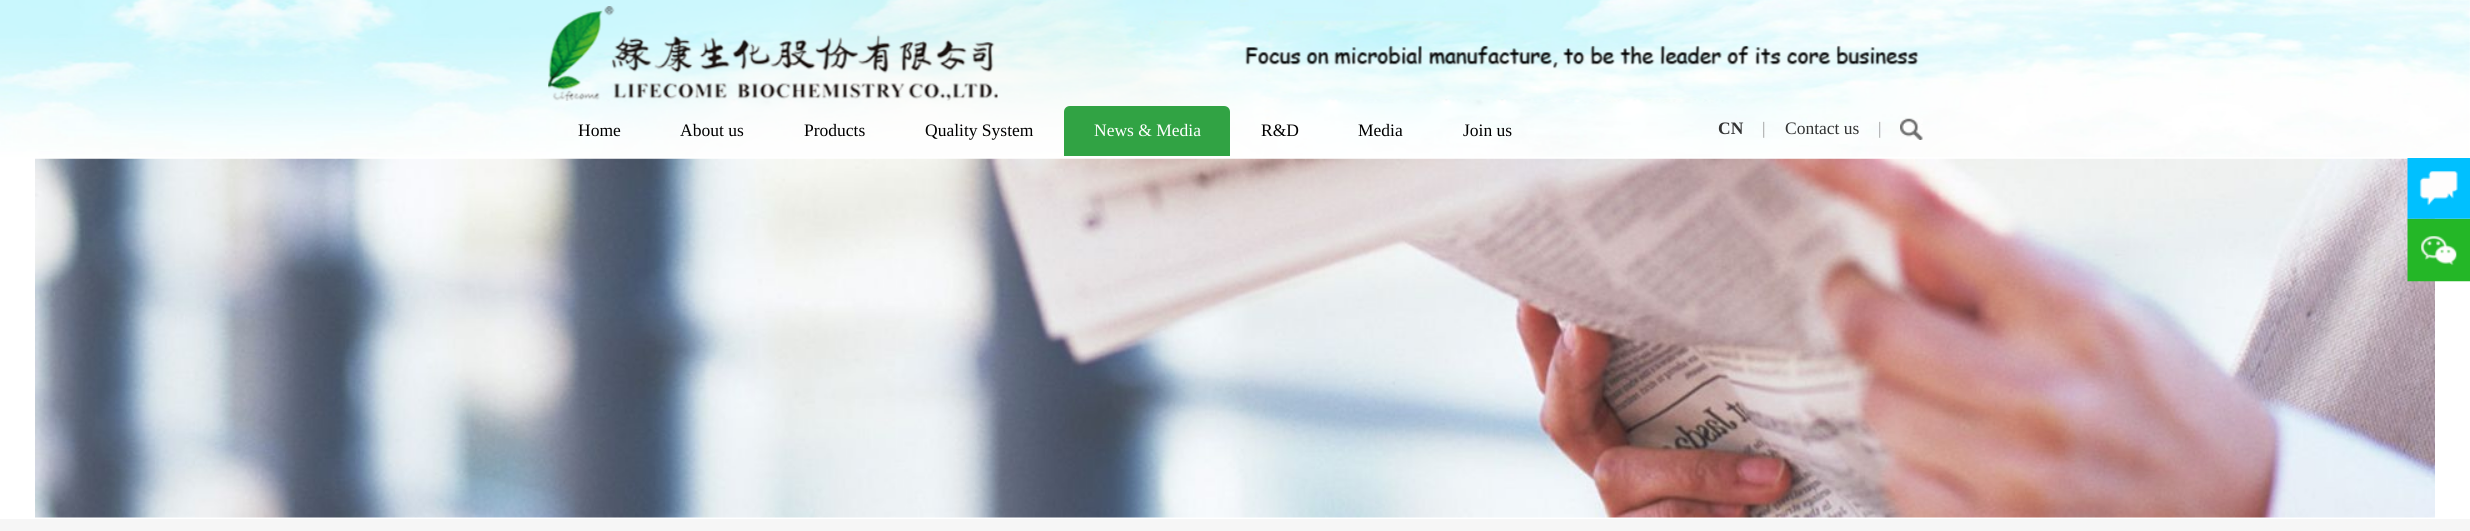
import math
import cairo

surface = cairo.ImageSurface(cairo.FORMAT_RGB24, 2470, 531)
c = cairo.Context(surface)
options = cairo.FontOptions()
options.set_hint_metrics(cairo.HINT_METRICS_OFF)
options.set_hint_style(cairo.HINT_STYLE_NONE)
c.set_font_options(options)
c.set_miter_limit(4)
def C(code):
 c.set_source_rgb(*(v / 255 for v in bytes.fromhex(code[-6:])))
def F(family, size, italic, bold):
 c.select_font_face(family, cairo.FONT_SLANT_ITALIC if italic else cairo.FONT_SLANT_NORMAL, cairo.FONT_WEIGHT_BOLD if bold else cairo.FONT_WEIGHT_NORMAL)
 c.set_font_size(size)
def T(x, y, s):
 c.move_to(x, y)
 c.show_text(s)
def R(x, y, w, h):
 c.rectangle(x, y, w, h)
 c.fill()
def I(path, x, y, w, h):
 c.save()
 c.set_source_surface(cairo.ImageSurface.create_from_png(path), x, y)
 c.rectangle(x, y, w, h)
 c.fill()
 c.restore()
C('ffffff')
c.paint()
I('1.png',0,0,2470,157)
I('2.png',548,6,450,95)
I('3.png',1245,45,674,24)
F('Liberation Serif',17.5,0,0)
C('000000')
T(578,136,'Home')
T(680,136,'About us')
T(804,136,'Products')
T(925,136,'Quality System')
C('31a344')
c.new_path()
c.move_to(1070,106)
c.line_to(1224,106)
c.curve_to(1227.5,106,1230,108.5,1230,112)
c.line_to(1230,156)
c.line_to(1064,156)
c.line_to(1064,112)
c.curve_to(1064,108.5,1066.5,106,1070,106)
c.close_path()
c.fill()
C('ffffff')
T(1094,136,'News & Media')
C('000000')
T(1261,136,'R&D')
T(1358,136,'Media')
T(1463,136,'Join us')
F('Liberation Serif',17.5,0,1)
C('323333')
T(1718,134,'CN')
F('Liberation Serif',17.5,0,0)
C('999999')
T(1762,134,'|')
C('323333')
T(1785,134,'Contact us')
C('999999')
T(1878,134,'|')
I('4.png',1900,118,23,22)
I('5.png',35,158,2400,360)
I('7.png',2407,218,63,64)
I('6.png',2407,158,63,61)
C('f6f6f6')
R(0,519,2470,12)
surface.write_to_png('o.png')
